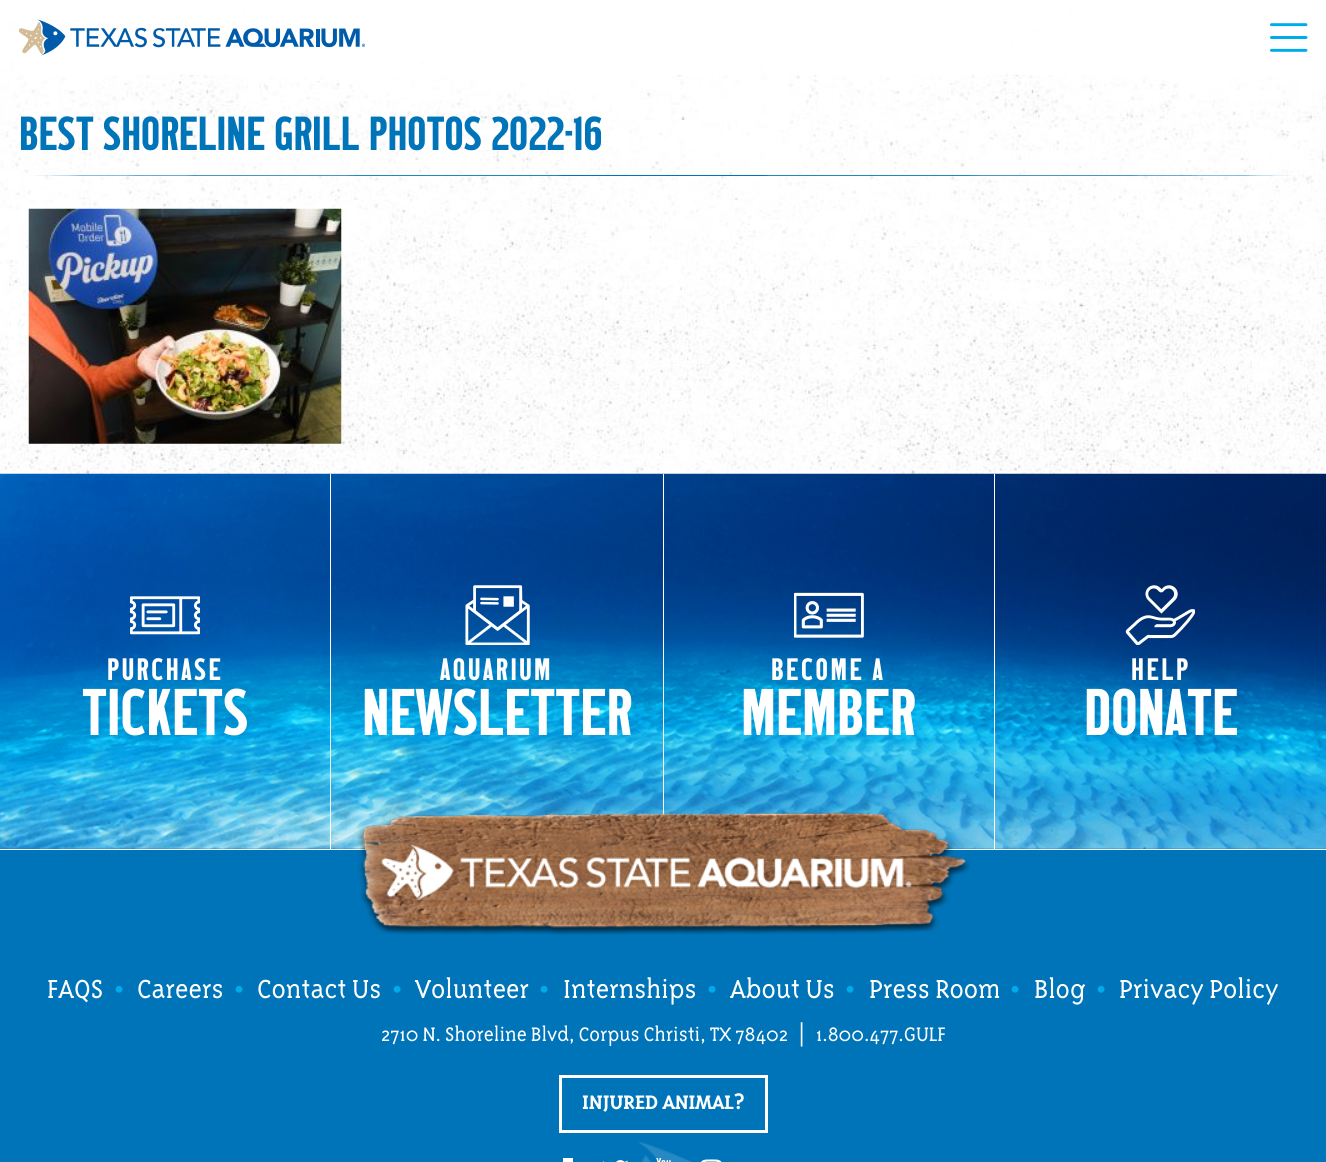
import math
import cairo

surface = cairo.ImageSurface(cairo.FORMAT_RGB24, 1326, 1162)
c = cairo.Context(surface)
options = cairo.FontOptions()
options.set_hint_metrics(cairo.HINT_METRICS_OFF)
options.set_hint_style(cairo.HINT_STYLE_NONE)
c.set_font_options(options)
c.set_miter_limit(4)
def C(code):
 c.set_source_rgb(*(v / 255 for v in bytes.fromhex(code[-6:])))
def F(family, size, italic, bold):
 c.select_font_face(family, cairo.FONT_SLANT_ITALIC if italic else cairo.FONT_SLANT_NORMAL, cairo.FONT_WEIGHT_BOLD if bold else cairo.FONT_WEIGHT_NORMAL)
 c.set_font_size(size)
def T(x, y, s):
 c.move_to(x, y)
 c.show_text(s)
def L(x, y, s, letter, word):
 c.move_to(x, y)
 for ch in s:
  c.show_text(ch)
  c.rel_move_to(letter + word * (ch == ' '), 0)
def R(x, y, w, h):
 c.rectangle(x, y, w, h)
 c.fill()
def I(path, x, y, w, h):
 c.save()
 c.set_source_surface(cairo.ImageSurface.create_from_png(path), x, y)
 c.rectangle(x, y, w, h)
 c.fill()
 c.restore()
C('ffffff')
c.paint()
I('1.png',0,0,1326,474)
c.set_source_rgba(1,1,1,0.9)
R(33,0,1293,75)
I('2.png',19,19,346,37)
I('3.png',1270,23,38,29)
F('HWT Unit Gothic',50,0,0)
C('0074b9')
T(19,150,'BEST SHORELINE GRILL PHOTOS 2022-16')
I('4.png',28,208,314,236)
R(0,848,1326,314)
I('5.png',0,473,1326,376)
C('ffffff')
R(0,849,1326,1)
R(330,474,1,375)
I('6.png',130,596,70,39)
F('HWT Unit Gothic',32.5,0,0)
L(107,680,'PURCHASE',2.5,0)
F('HWT Unit Gothic',69,0,0)
T(82,735,'TICKETS')
R(663,474,1,342)
I('7.png',465,585,65,60)
F('HWT Unit Gothic',32.5,0,0)
L(440,680,'AQUARIUM',2.5,0)
F('HWT Unit Gothic',69,0,0)
T(362,735,'NEWSLETTER')
R(994,474,1,375)
I('8.png',794,592,70,46)
F('HWT Unit Gothic',32.5,0,0)
L(771,680,'BECOME A',2.5,0)
F('HWT Unit Gothic',69,0,0)
T(741,735,'MEMBER')
I('9.png',1125,585,70,60)
F('HWT Unit Gothic',32.5,0,0)
L(1131,680,'HELP',2.5,0)
F('HWT Unit Gothic',69,0,0)
T(1084,735,'DONATE')
I('10.png',638,1141,54,21)
I('11.png',357,812,614,123)
F('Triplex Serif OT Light',30,0,0)
T(47,998,'FAQS')
F('Triplex Serif OT Light',34,0,0)
C('00abe9')
T(114,1000,'•')
F('Triplex Serif OT Light',30,0,0)
C('ffffff')
T(137,998,'Careers')
F('Triplex Serif OT Light',34,0,0)
C('00abe9')
T(234,1000,'•')
F('Triplex Serif OT Light',30,0,0)
C('ffffff')
T(257,998,'Contact Us')
F('Triplex Serif OT Light',34,0,0)
C('00abe9')
T(392,1000,'•')
F('Triplex Serif OT Light',30,0,0)
C('ffffff')
T(415,998,'Volunteer')
F('Triplex Serif OT Light',34,0,0)
C('00abe9')
T(539,1000,'•')
F('Triplex Serif OT Light',30,0,0)
C('ffffff')
T(563,998,'Internships')
F('Triplex Serif OT Light',34,0,0)
C('00abe9')
T(707,1000,'•')
F('Triplex Serif OT Light',30,0,0)
C('ffffff')
T(730,998,'About Us')
F('Triplex Serif OT Light',34,0,0)
C('00abe9')
T(845,1000,'•')
F('Triplex Serif OT Light',30,0,0)
C('ffffff')
T(869,998,'Press Room')
F('Triplex Serif OT Light',34,0,0)
C('00abe9')
T(1010,1000,'•')
F('Triplex Serif OT Light',30,0,0)
C('ffffff')
T(1034,998,'Blog')
F('Triplex Serif OT Light',34,0,0)
C('00abe9')
T(1096,1000,'•')
F('Triplex Serif OT Light',30,0,0)
C('ffffff')
T(1119,998,'Privacy Policy')
F('Triplex Serif OT Light',22.5,0,0)
T(381,1041,'2710 N. Shoreline Blvd, Corpus Christi, TX 78402')
F('Triplex Serif OT Light',25,0,0)
T(798,1041,'|')
F('Triplex Serif OT Light',22.5,0,0)
T(816,1041,'1.800.477.GULF')
c.rectangle(560.5,1076.5,206,55)
c.set_line_width(3)
c.stroke()
F('Triplex Serif OT',22.5,0,1)
T(582,1109,'INJURED ANIMAL?')
R(563,1158,10,4)
I('12.png',602,1160,26,2)
I('13.png',656,1158,15,4)
I('14.png',701,1159,21,3)
surface.write_to_png('o.png')
